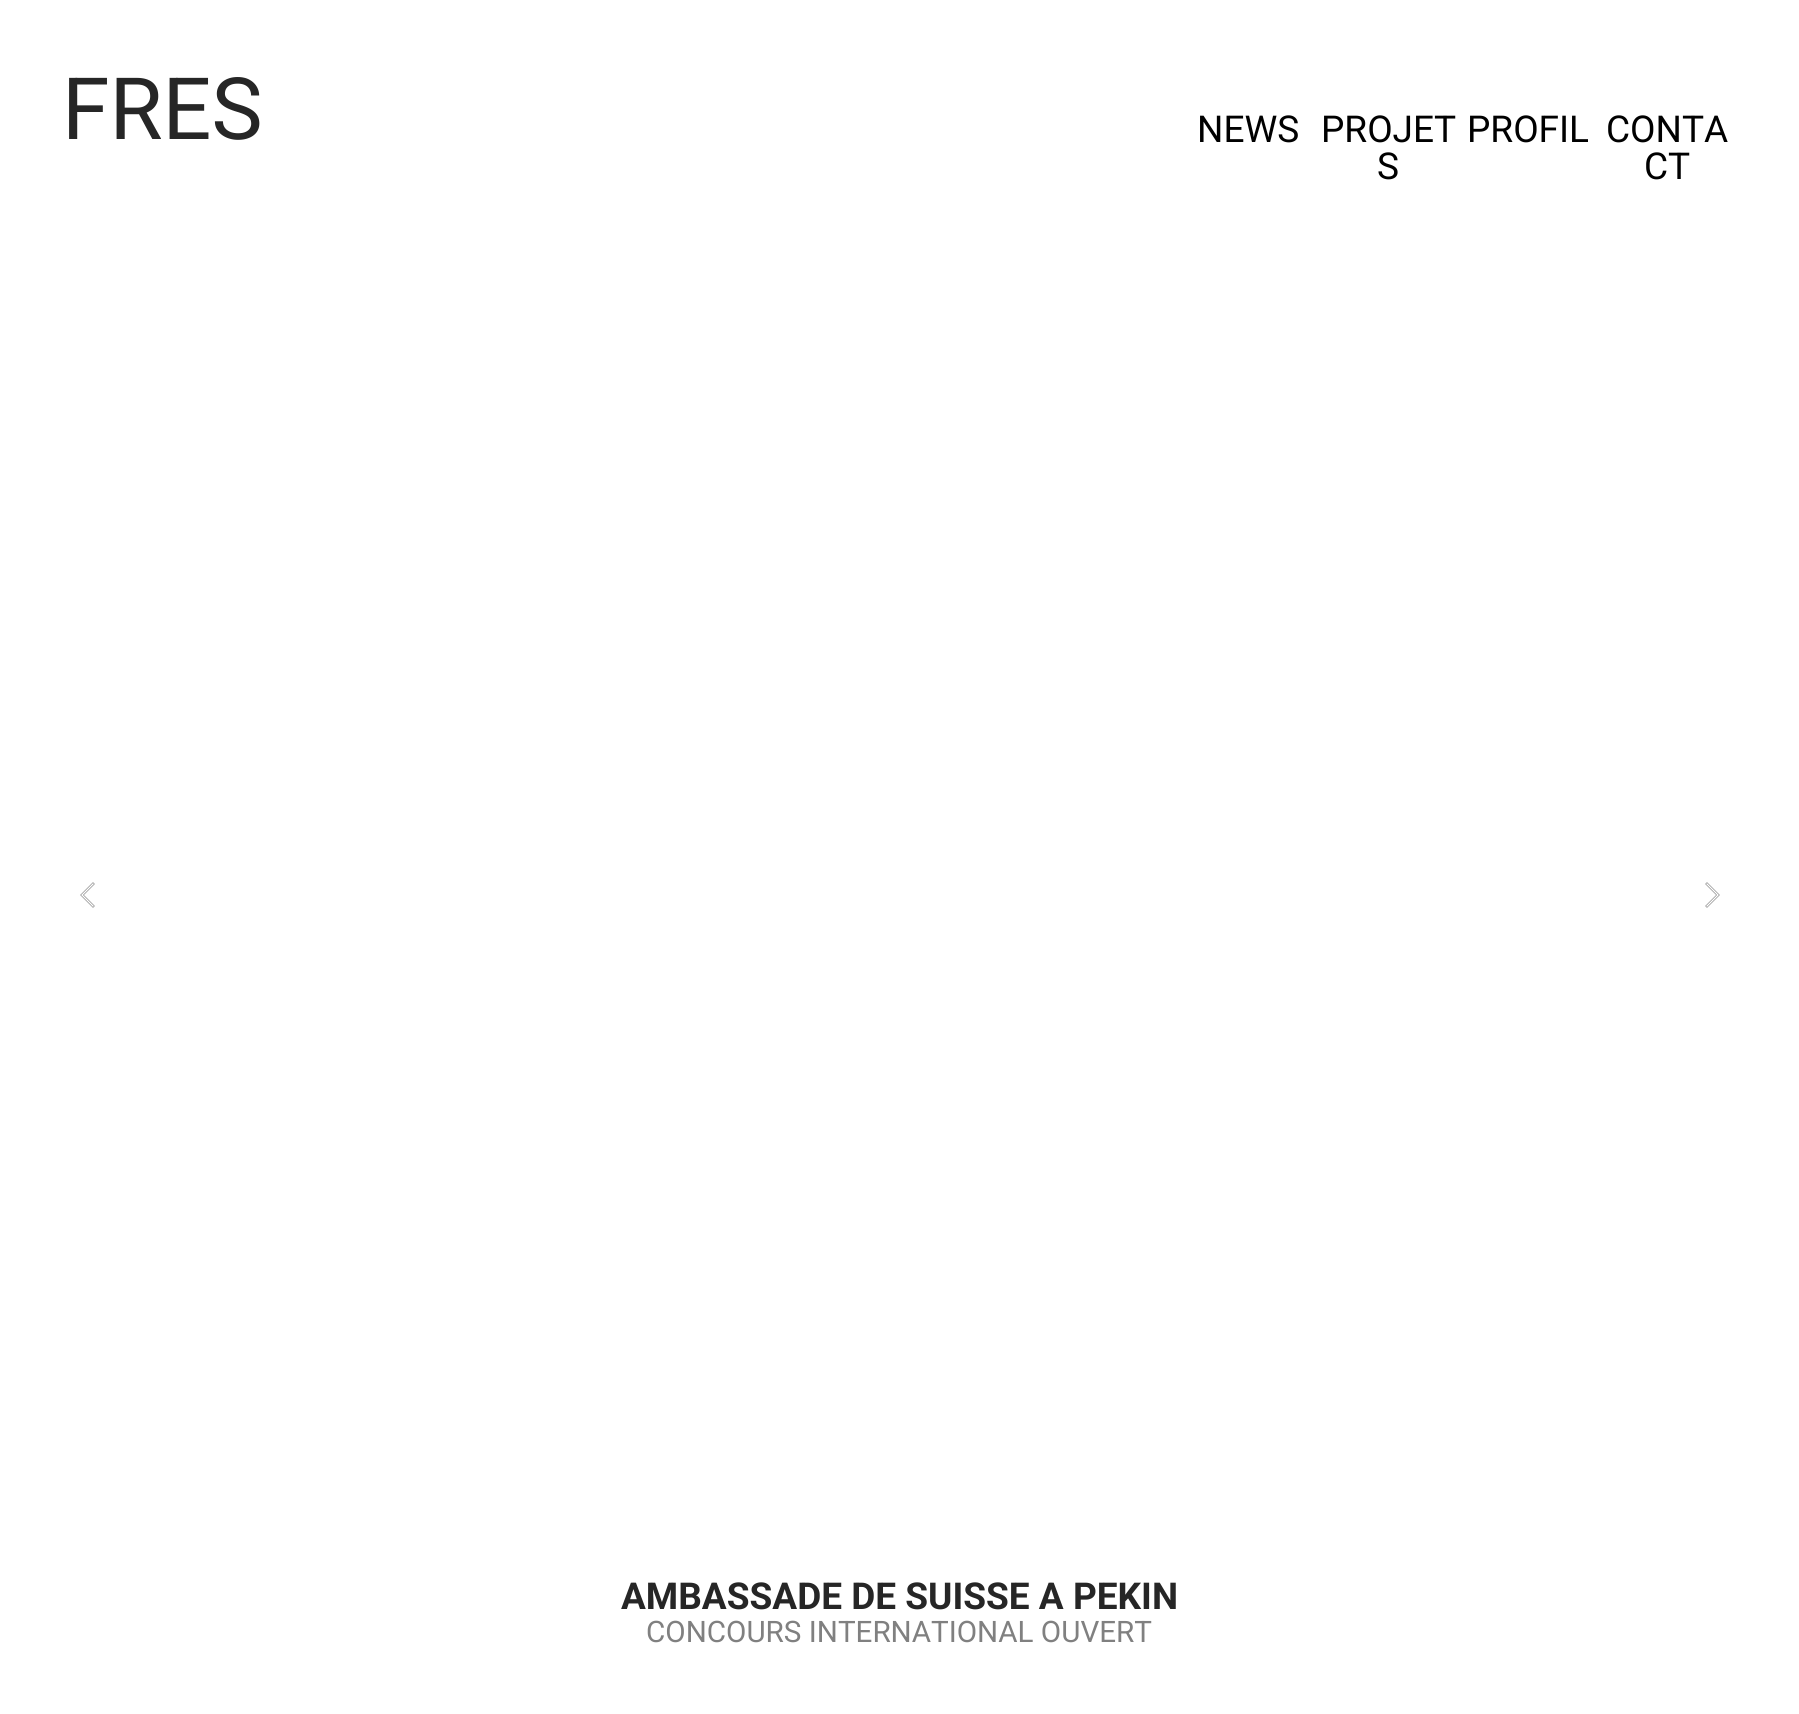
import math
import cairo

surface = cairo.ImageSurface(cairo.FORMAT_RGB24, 1799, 1714)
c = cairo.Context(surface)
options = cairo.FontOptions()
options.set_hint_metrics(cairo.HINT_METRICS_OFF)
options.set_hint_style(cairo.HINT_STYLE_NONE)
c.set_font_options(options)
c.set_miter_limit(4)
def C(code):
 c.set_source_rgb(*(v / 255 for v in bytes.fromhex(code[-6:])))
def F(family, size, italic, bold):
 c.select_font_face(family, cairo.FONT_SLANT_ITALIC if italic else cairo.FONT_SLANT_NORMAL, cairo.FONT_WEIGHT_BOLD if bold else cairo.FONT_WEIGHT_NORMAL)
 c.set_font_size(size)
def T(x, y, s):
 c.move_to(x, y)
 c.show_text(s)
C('ffffff')
c.paint()
F('Roboto',86,0,0)
C('262626')
T(62,139,'FRES')
F('Roboto',37,0,0)
C('000000')
T(1197,142,'NEWS')
T(1321,142,'PROJET')
T(1377,179,'S')
T(1467,142,'PROFIL')
T(1606,142,'CONTA')
T(1644,179,'CT')
c.new_path()
c.move_to(93,906)
c.line_to(82,895)
c.line_to(93,884)
C('666666')
c.set_line_width(2.5)
c.set_line_cap(cairo.LINE_CAP_SQUARE)
c.stroke()
c.new_path()
c.move_to(93,906)
c.line_to(82,895)
c.line_to(93,884)
C('ffffff')
c.set_line_width(1.5)
c.stroke()
c.new_path()
c.move_to(1707,906)
c.line_to(1718,895)
c.line_to(1707,884)
C('666666')
c.set_line_width(2.5)
c.stroke()
c.new_path()
c.move_to(1707,906)
c.line_to(1718,895)
c.line_to(1707,884)
C('ffffff')
c.set_line_width(1.5)
c.stroke()
F('Roboto',37,0,1)
C('262626')
T(621,1609,'AMBASSADE DE SUISSE A PEKIN')
F('Roboto',29.6,0,0)
C('808080')
T(646,1642,'CONCOURS INTERNATIONAL OUVERT')
surface.write_to_png('o.png')
